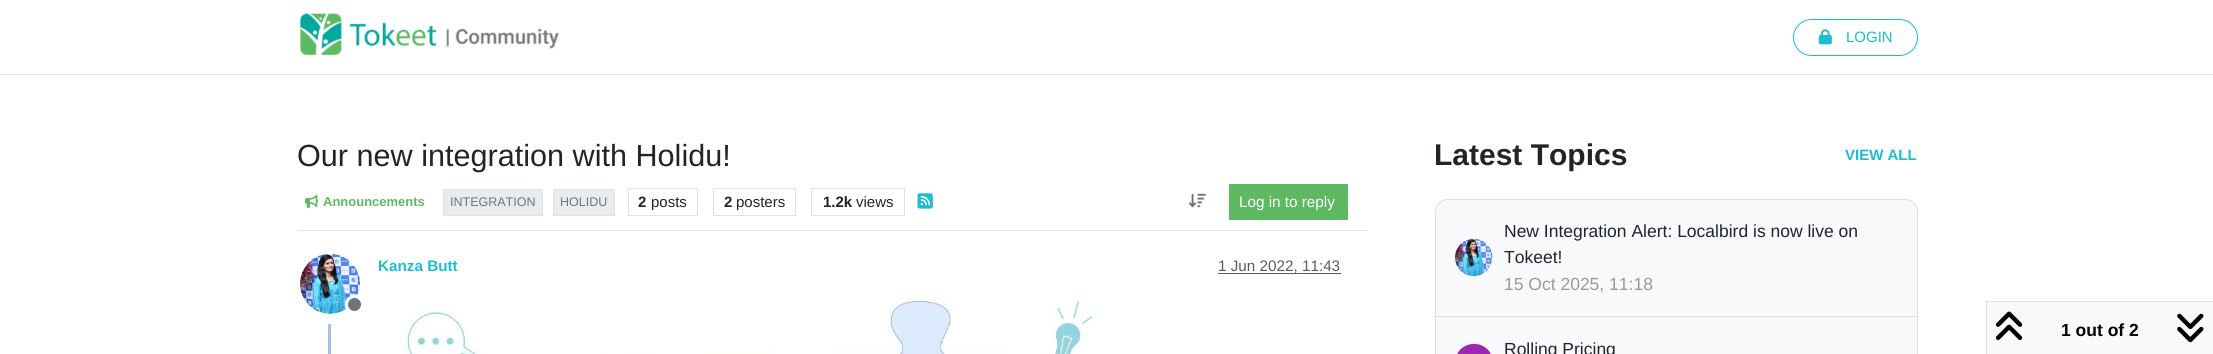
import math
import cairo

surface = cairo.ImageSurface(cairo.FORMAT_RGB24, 2213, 354)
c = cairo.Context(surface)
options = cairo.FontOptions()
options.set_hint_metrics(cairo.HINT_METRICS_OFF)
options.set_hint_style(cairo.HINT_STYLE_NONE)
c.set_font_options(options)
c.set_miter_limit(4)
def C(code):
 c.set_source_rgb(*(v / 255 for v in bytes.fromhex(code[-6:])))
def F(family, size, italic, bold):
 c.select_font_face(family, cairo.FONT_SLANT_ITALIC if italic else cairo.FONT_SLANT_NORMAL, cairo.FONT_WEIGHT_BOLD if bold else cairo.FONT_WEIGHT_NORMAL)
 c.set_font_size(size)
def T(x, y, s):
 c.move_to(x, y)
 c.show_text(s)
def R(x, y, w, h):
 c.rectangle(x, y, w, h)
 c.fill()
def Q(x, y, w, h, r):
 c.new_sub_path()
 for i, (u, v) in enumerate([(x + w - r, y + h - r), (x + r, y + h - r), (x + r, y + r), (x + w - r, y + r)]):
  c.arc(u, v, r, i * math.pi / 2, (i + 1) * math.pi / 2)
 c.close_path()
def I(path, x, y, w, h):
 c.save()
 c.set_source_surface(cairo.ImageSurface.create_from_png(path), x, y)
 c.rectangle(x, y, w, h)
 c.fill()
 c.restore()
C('ffffff')
c.paint()
C('dee2e6')
R(0,74,2213,1)
I('1.png',299,13,260,43)
Q(1793.5,19.5,124,36,18)
C('1cbdd3')
c.set_line_width(1)
c.stroke()
I('2.png',1818,29,14,16)
F('Liberation Sans',15,0,0)
T(1846,42,'LOGIN')
C('dee2e6')
R(298,230,1070,1)
F('Liberation Sans',30.6,0,0)
C('212529')
T(297,166,'Our new integration with Holidu!')
I('3.png',305,194,14,14)
F('Liberation Sans',13,0,1)
C('5fb963')
T(323,206,'Announcements')
C('e9ecef')
c.rectangle(443.5,189.5,99,26)
c.fill_preserve()
C('dee2e6')
c.stroke()
F('Liberation Sans',12.5,0,0)
C('6c757d')
T(450,206,'INTEGRATION')
C('e9ecef')
c.rectangle(553.5,189.5,61,26)
c.fill_preserve()
C('dee2e6')
c.stroke()
C('6c757d')
T(560,206,'HOLIDU')
c.rectangle(628.5,188.5,69,27)
C('dee2e6')
c.stroke()
F('Liberation Sans',15,0,1)
C('212529')
T(638,207,'2')
F('Liberation Sans',15,0,0)
T(651,207,'posts')
c.rectangle(713.5,188.5,82,27)
C('dee2e6')
c.stroke()
F('Liberation Sans',15,0,1)
C('212529')
T(724,207,'2')
F('Liberation Sans',15,0,0)
T(736,207,'posters')
c.rectangle(811.5,188.5,93,27)
C('dee2e6')
c.stroke()
F('Liberation Sans',15,0,1)
C('212529')
T(823,207,'1.2k')
F('Liberation Sans',15,0,0)
T(856,207,'views')
I('4.png',917,193,16,16)
I('5.png',1189,193,17,15)
C('5fb963')
R(1229,184,119,36)
F('Liberation Sans',15.25,0,0)
C('ffffff')
T(1239,207,'Log in to reply')
C('a0c4e4')
R(328,313,3,41)
c.new_path()
c.arc(330,284,35,0,2 * math.pi)
C('ffffff')
c.set_line_width(10)
c.stroke()
I('6.png',300,254,60,60)
C('6c757d')
c.arc(354.5,304.5,8,0,2 * math.pi)
c.fill_preserve()
C('ffffff')
c.set_line_width(3)
c.stroke()
F('Liberation Sans',15.25,0,1)
C('1cbdd3')
T(378,271,'Kanza Butt')
F('Liberation Sans',15.25,0,0)
C('595c5f')
T(1218,271,'1 Jun 2022, 11:43')
R(1218,273,123,1)
I('7.png',404,297,689,57)
C('f8f9fa')
c.rectangle(1986.5,301.5,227,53)
c.fill_preserve()
C('dee2e6')
c.set_line_width(1)
c.stroke()
I('8.png',1996,311,27,29)
F('Liberation Sans',17.5,0,1)
C('000000')
T(2061,336,'1 out of 2')
I('9.png',2177,313,27,30)
F('Liberation Sans',30,0,1)
C('212529')
T(1434,165,'Latest Topics')
F('Liberation Sans',15,0,1)
C('1cbdd3')
T(1845,160,'VIEW ALL')
C('f8f9fb')
Q(1435.5,199.5,482,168,12.5)
c.fill_preserve()
C('dddddd')
c.stroke()
R(1436,316,480,1)
I('10.png',1455,238,38,39)
F('Liberation Sans',17.5,0,0)
C('212529')
T(1504,237,'New Integration Alert: Localbird is now live on')
T(1504,263,'Tokeet!')
C('999999')
T(1504,290,'15 Oct 2025, 11:18')
C('9c27b0')
Q(1455,344,38,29,18.5)
c.fill()
C('212529')
T(1504,355,'Rolling Pricing')
surface.write_to_png('o.png')
